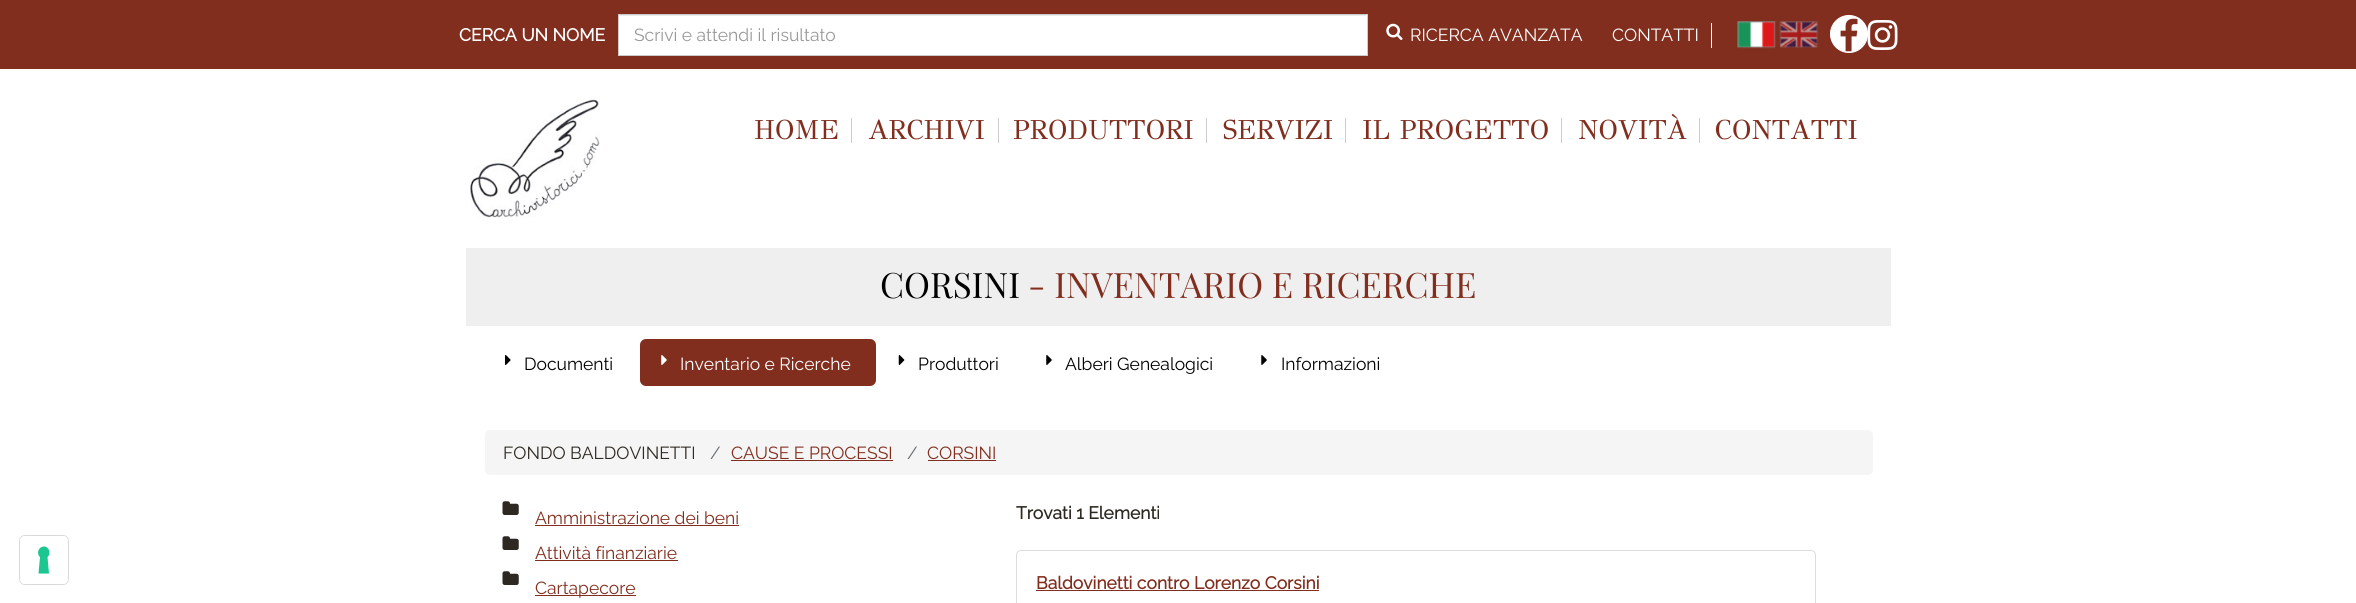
import math
import cairo

surface = cairo.ImageSurface(cairo.FORMAT_RGB24, 2356, 603)
c = cairo.Context(surface)
options = cairo.FontOptions()
options.set_hint_metrics(cairo.HINT_METRICS_OFF)
options.set_hint_style(cairo.HINT_STYLE_NONE)
c.set_font_options(options)
c.set_miter_limit(4)
def C(code):
 c.set_source_rgb(*(v / 255 for v in bytes.fromhex(code[-6:])))
def F(family, size, italic, bold):
 c.select_font_face(family, cairo.FONT_SLANT_ITALIC if italic else cairo.FONT_SLANT_NORMAL, cairo.FONT_WEIGHT_BOLD if bold else cairo.FONT_WEIGHT_NORMAL)
 c.set_font_size(size)
def T(x, y, s):
 c.move_to(x, y)
 c.show_text(s)
def R(x, y, w, h):
 c.rectangle(x, y, w, h)
 c.fill()
def Q(x, y, w, h, r):
 c.new_sub_path()
 for i, (u, v) in enumerate([(x + w - r, y + h - r), (x + r, y + h - r), (x + r, y + r), (x + w - r, y + r)]):
  c.arc(u, v, r, i * math.pi / 2, (i + 1) * math.pi / 2)
 c.close_path()
def I(path, x, y, w, h):
 c.save()
 c.set_source_surface(cairo.ImageSurface.create_from_png(path), x, y)
 c.rectangle(x, y, w, h)
 c.fill()
 c.restore()
C('ffffff')
c.paint()
C('812e1e')
R(0,0,2356,69)
F('Raleway',17.5,0,1)
C('ffffff')
T(459,41,'CERCA UN NOME')
R(619,15,748,40)
C('ececec')
R(619,15,747,1)
c.rectangle(618.5,14.5,749,41)
C('cccccc')
c.set_line_width(1)
c.stroke()
F('Raleway Thin',17.5,0,0)
C('999999')
T(634,41,'Scrivi e attendi il risultato')
I('1.png',1386,23,17,17)
C('ffffff')
T(1410,41,'RICERCA AVANZATA')
R(1711,23,1,25)
T(1612,41,'CONTATTI')
I('2.png',1737,21,39,28)
I('3.png',1779,21,40,27)
c.arc(1849,34,18.5,0,2 * math.pi)
c.fill_preserve()
c.stroke()
I('4.png',1840,18,18,34)
I('5.png',1867,20,31,30)
I('6.png',470,99,130,119)
C('cccccc')
R(851,118,1,25)
F('GFS Didot',27.5,0,0)
C('812e1e')
T(754,139,'HOME')
C('cccccc')
R(998,118,1,25)
C('812e1e')
T(868,139,'ARCHIVI')
C('cccccc')
R(1206,118,1,25)
C('812e1e')
T(1013,139,'PRODUTTORI')
C('cccccc')
R(1345,118,1,25)
C('812e1e')
T(1223,139,'SERVIZI')
C('cccccc')
R(1561,118,1,25)
C('812e1e')
T(1362,139,'IL PROGETTO')
C('cccccc')
R(1699,118,1,25)
C('812e1e')
T(1578,139,'NOVITÀ')
T(1715,139,'CONTATTI')
Q(19.5,535.5,49,49,5.5)
C('d9d9d9')
c.stroke()
C('ffffff')
Q(20,536,48,48,5)
c.fill()
C('1cc691')
c.set_fill_rule(cairo.FILL_RULE_EVEN_ODD)
c.new_path()
c.move_to(44,546.5)
c.curve_to(49,546.5,51.5,553.5,47.5,557)
c.line_to(49,573.5)
c.line_to(38.5,573.5)
c.line_to(40,557)
c.curve_to(36,553.5,38.5,546.5,44,546.5)
c.close_path()
c.fill()
C('efefef')
R(466,248,1425,78)
F('Playfair Display',35,0,0)
C('000000')
T(880,298,'CORSINI')
C('812e1e')
T(1028,298,'- INVENTARIO E RICERCHE')
I('7.png',505,355,6,10)
F('Raleway Thin',17.5,0,0)
C('000000')
T(524,370,'Documenti')
C('812e1e')
Q(640,339,236,47,6)
c.fill()
I('8.png',661,355,6,10)
C('ffffff')
T(680,370,'Inventario e Ricerche')
I('9.png',898,355,7,10)
C('000000')
T(918,370,'Produttori')
I('10.png',1046,355,6,10)
T(1065,370,'Alberi Genealogici')
I('10.png',1261,355,6,10)
T(1281,370,'Informazioni')
C('f5f5f5')
Q(485,430,1388,45,5)
c.fill()
C('2d2821')
T(503,459,'FONDO BALDOVINETTI')
C('636c72')
T(710,459,'/')
C('812e1e')
T(731,459,'CAUSE E PROCESSI')
R(731,460,162,1)
C('636c72')
T(907,459,'/')
C('812e1e')
T(927,459,'CORSINI')
R(928,460,68,1)
I('11.png',502,501,17,14)
T(535,524,'Amministrazione dei beni')
R(535,525,204,1)
I('11.png',502,536,17,14)
T(535,559,'Attività finanziarie')
R(535,560,143,1)
I('11.png',502,571,17,14)
R(535,595,101,1)
T(535,594,'Cartapecore')
F('Raleway',17.5,0,1)
C('2d2821')
T(1016,519,'Trovati 1 Elementi')
Q(1016.5,550.5,799,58,4.5)
C('dddddd')
c.stroke()
C('812e1e')
T(1036,589,'Baldovinetti contro Lorenzo Corsini')
R(1036,590,283,1)
surface.write_to_png('o.png')
